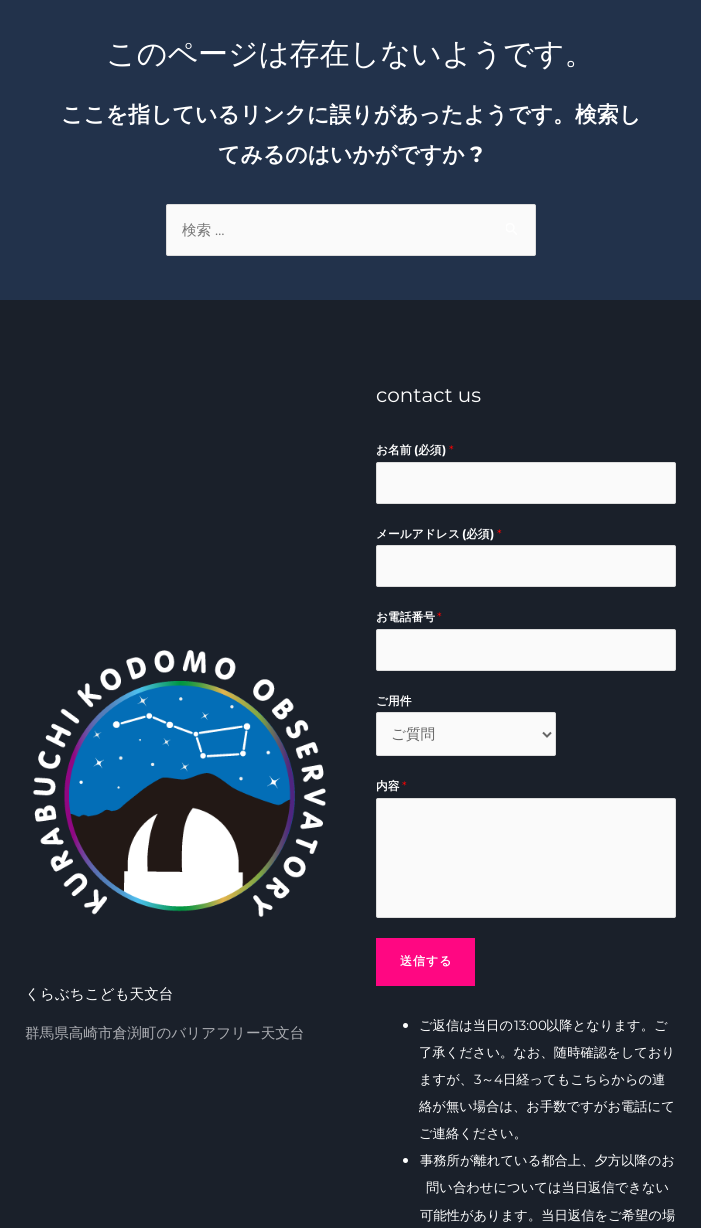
import math
import cairo

surface = cairo.ImageSurface(cairo.FORMAT_RGB24, 701, 1228)
c = cairo.Context(surface)
options = cairo.FontOptions()
options.set_hint_metrics(cairo.HINT_METRICS_OFF)
options.set_hint_style(cairo.HINT_STYLE_NONE)
c.set_font_options(options)
c.set_miter_limit(4)
def C(code):
 c.set_source_rgb(*(v / 255 for v in bytes.fromhex(code[-6:])))
def F(family, size, italic, bold):
 c.select_font_face(family, cairo.FONT_SLANT_ITALIC if italic else cairo.FONT_SLANT_NORMAL, cairo.FONT_WEIGHT_BOLD if bold else cairo.FONT_WEIGHT_NORMAL)
 c.set_font_size(size)
def T(x, y, s):
 c.move_to(x, y)
 c.show_text(s)
def L(x, y, s, letter, word):
 c.move_to(x, y)
 for ch in s:
  c.show_text(ch)
  c.rel_move_to(letter + word * (ch == ' '), 0)
def R(x, y, w, h):
 c.rectangle(x, y, w, h)
 c.fill()
def Q(x, y, w, h, r):
 c.new_sub_path()
 for i, (u, v) in enumerate([(x + w - r, y + h - r), (x + r, y + h - r), (x + r, y + r), (x + w - r, y + r)]):
  c.arc(u, v, r, i * math.pi / 2, (i + 1) * math.pi / 2)
 c.close_path()
def I(path, x, y, w, h):
 c.save()
 c.set_source_surface(cairo.ImageSurface.create_from_png(path), x, y)
 c.rectangle(x, y, w, h)
 c.fill()
 c.restore()
C('22324b')
c.paint()
F('WenQuanYi Zen Hei Medium',30,0,0)
C('ffffff')
T(106,64,'このページは存在しないようです。')
F('WenQuanYi Zen Hei',21.9,0,1)
T(61,122,'ここを指しているリンクに誤りがあったようです。検索し')
T(218,162,'てみるのはいかがですか')
F('Montserrat',21.9,0,1)
T(470,162,'?')
C('fafafa')
Q(166.5,204.5,369,51,1.5)
c.fill_preserve()
C('dddddd')
c.set_line_width(1)
c.stroke()
F('WenQuanYi Zen Hei Medium',14.6,0,0)
C('757575')
T(182,235,'検索')
F('Montserrat',14.6,0,0)
T(215,235,'…')
I('1.png',506,223,11,12)
C('1a202a')
R(0,300,701,928)
I('2.png',32,650,294,267)
F('WenQuanYi Zen Hei Medium',14.6,0,0)
C('ffffff')
T(25,999,'くらぶちこども天文台')
C('aaacb1')
T(25,1038,'群馬県高崎市倉渕町のバリアフリー天文台')
F('Montserrat',20,0,0)
C('ffffff')
T(376,402,'contact us')
F('WenQuanYi Zen Hei',11.75,0,1)
T(376,454,'お名前')
F('Montserrat',11.75,0,1)
T(414,454,'(')
F('WenQuanYi Zen Hei',11.75,0,1)
T(418,454,'必須')
F('Montserrat',11.75,0,1)
T(442,454,')')
F('Montserrat',11.75,0,0)
C('ff0000')
T(449,454,'*')
C('fafafa')
Q(376.5,462.5,299,41,1.5)
c.fill_preserve()
C('dddddd')
c.stroke()
F('WenQuanYi Zen Hei',11.75,0,1)
C('ffffff')
T(376,538,'メールアドレス')
F('Montserrat',11.75,0,1)
T(462,538,'(')
F('WenQuanYi Zen Hei',11.75,0,1)
T(466,538,'必須')
F('Montserrat',11.75,0,1)
T(490,538,')')
F('Montserrat',11.75,0,0)
C('ff0000')
T(497,538,'*')
C('fafafa')
Q(376.5,545.5,299,41,1.5)
c.fill_preserve()
C('dddddd')
c.stroke()
F('WenQuanYi Zen Hei',11.75,0,1)
C('ffffff')
T(376,621,'お電話番号')
F('Montserrat',11.75,0,0)
C('ff0000')
T(437,621,'*')
C('fafafa')
Q(376.5,629.5,299,41,1.5)
c.fill_preserve()
C('dddddd')
c.stroke()
F('WenQuanYi Zen Hei',11.75,0,1)
C('ffffff')
T(376,705,'ご用件')
C('fafafa')
Q(376.5,712.5,179,43,1.5)
c.fill_preserve()
C('dddddd')
c.stroke()
c.new_path()
c.move_to(543,732.5)
c.line_to(547,736.5)
c.line_to(551,732.5)
C('666666')
c.set_line_width(2)
c.stroke()
F('WenQuanYi Zen Hei Medium',14.6,0,0)
T(391,739,'ご質問')
F('WenQuanYi Zen Hei',11.75,0,1)
C('ffffff')
T(376,790,'内容')
F('Montserrat',11.75,0,0)
C('ff0000')
T(402,790,'*')
C('fafafa')
Q(376.5,798.5,299,119,1.5)
c.fill_preserve()
C('dddddd')
c.set_line_width(1)
c.stroke()
C('ff0782')
R(376,938,99,48)
F('WenQuanYi Zen Hei',12,0,1)
C('ffffff')
L(400,965,'送信する',1,0)
c.new_path()
c.arc(405.5,1025.5,2.5,0,2 * math.pi)
c.fill()
F('WenQuanYi Zen Hei Medium',13.3,0,0)
T(419,1030,'ご返信は当日の')
F('Montserrat',13.3,0,0)
T(514,1030,'13:00')
F('WenQuanYi Zen Hei Medium',13.3,0,0)
T(546,1030,'以降となります。ご')
T(419,1057,'了承ください。なお、随時確認をしており')
T(419,1084,'ますが、')
F('Montserrat',13.3,0,0)
T(474,1084,'3')
F('WenQuanYi Zen Hei Medium',13.3,0,0)
T(481,1084,'～')
F('Montserrat',13.3,0,0)
T(494,1084,'4')
F('WenQuanYi Zen Hei Medium',13.3,0,0)
T(503,1084,'日経ってもこちらからの連')
T(419,1111,'絡が無い場合は、お手数ですがお電話にて')
T(419,1138,'ご連絡ください。')
c.new_path()
c.arc(405.5,1160.5,2.5,0,2 * math.pi)
c.fill()
T(420,1165,'事務所が離れている都合上、夕方以降のお')
T(426,1192,'問い合わせについては当日返信できない')
T(420,1220,'可能性があります。当日返信をご希望の場')
surface.write_to_png('o.png')
